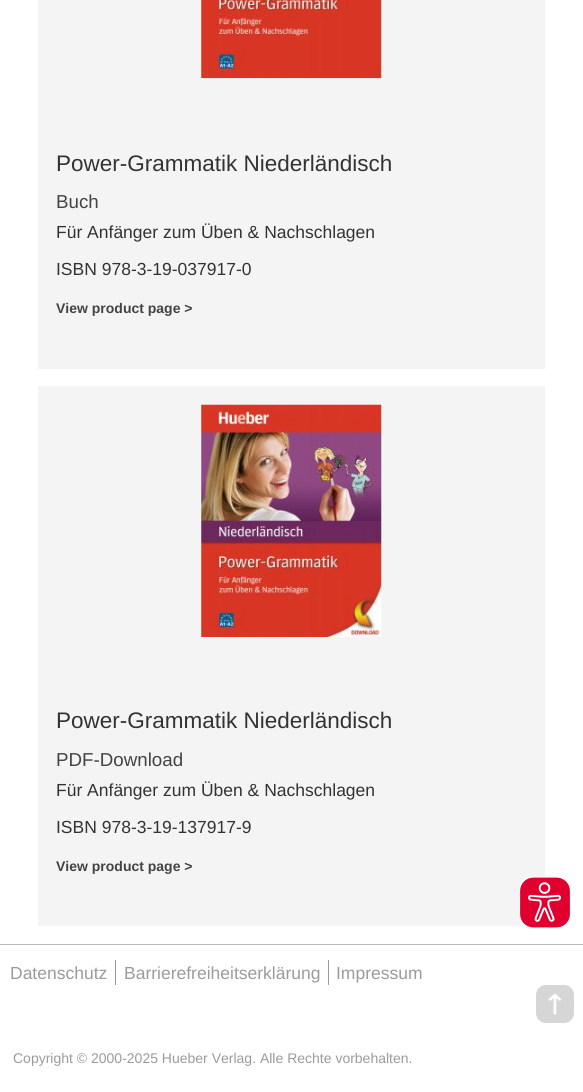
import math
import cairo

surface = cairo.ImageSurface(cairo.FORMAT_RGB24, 583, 1092)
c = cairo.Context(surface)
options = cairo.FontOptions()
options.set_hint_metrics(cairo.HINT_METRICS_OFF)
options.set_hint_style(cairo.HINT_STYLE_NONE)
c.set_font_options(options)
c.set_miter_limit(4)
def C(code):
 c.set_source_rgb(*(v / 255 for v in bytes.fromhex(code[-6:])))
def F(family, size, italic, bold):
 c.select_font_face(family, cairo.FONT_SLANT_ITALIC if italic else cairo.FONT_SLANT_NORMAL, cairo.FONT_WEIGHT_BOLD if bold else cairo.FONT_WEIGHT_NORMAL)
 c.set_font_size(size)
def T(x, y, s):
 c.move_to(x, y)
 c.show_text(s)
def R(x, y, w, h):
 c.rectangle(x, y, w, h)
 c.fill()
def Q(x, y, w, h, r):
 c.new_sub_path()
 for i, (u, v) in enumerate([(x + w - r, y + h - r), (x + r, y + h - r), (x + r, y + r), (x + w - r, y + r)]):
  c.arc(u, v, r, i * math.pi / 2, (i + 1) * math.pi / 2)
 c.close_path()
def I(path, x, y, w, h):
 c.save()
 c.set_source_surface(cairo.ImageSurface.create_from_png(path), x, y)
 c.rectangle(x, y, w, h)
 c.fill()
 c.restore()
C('ffffff')
c.paint()
C('f4f4f4')
R(38,0,507,369)
I('1.png',201,0,181,79)
F('Liberation Sans',22.5,0,0)
C('333333')
T(56,171,'Power-Grammatik Niederländisch')
F('Liberation Sans',18.75,0,0)
C('444444')
T(56,208,'Buch')
F('Liberation Sans',17.5,0,0)
C('333333')
T(56,238,'Für Anfänger zum Üben & Nachschlagen')
T(56,275,'ISBN 978-3-19-037917-0')
F('Liberation Sans',14,0,1)
C('444444')
T(56,313,'View product page >')
C('f4f4f4')
R(38,386,507,540)
I('2.png',201,404,181,233)
F('Liberation Sans',22.5,0,0)
C('333333')
T(56,728,'Power-Grammatik Niederländisch')
F('Liberation Sans',18.75,0,0)
C('444444')
T(56,766,'PDF-Download')
F('Liberation Sans',17.5,0,0)
C('333333')
T(56,796,'Für Anfänger zum Üben & Nachschlagen')
T(56,833,'ISBN 978-3-19-137917-9')
F('Liberation Sans',14,0,1)
C('444444')
T(56,871,'View product page >')
I('3.png',519,876,52,53)
C('bbbbbb')
R(0,944,583,1)
C('9b9b9b')
R(115,960,1,25)
F('Liberation Sans',17.5,0,0)
T(10,979,'Datenschutz')
R(328,960,1,25)
T(124,979,'Barrierefreiheitserklärung')
T(336,979,'Impressum')
F('Liberation Sans',14,0,0)
T(13,1063,'Copyright © 2000-2025 Hueber Verlag. Alle Rechte vorbehalten.')
C('d6d6d6')
Q(536,985,38,38,10)
c.fill()
I('4.png',548,993,14,22)
surface.write_to_png('o.png')
